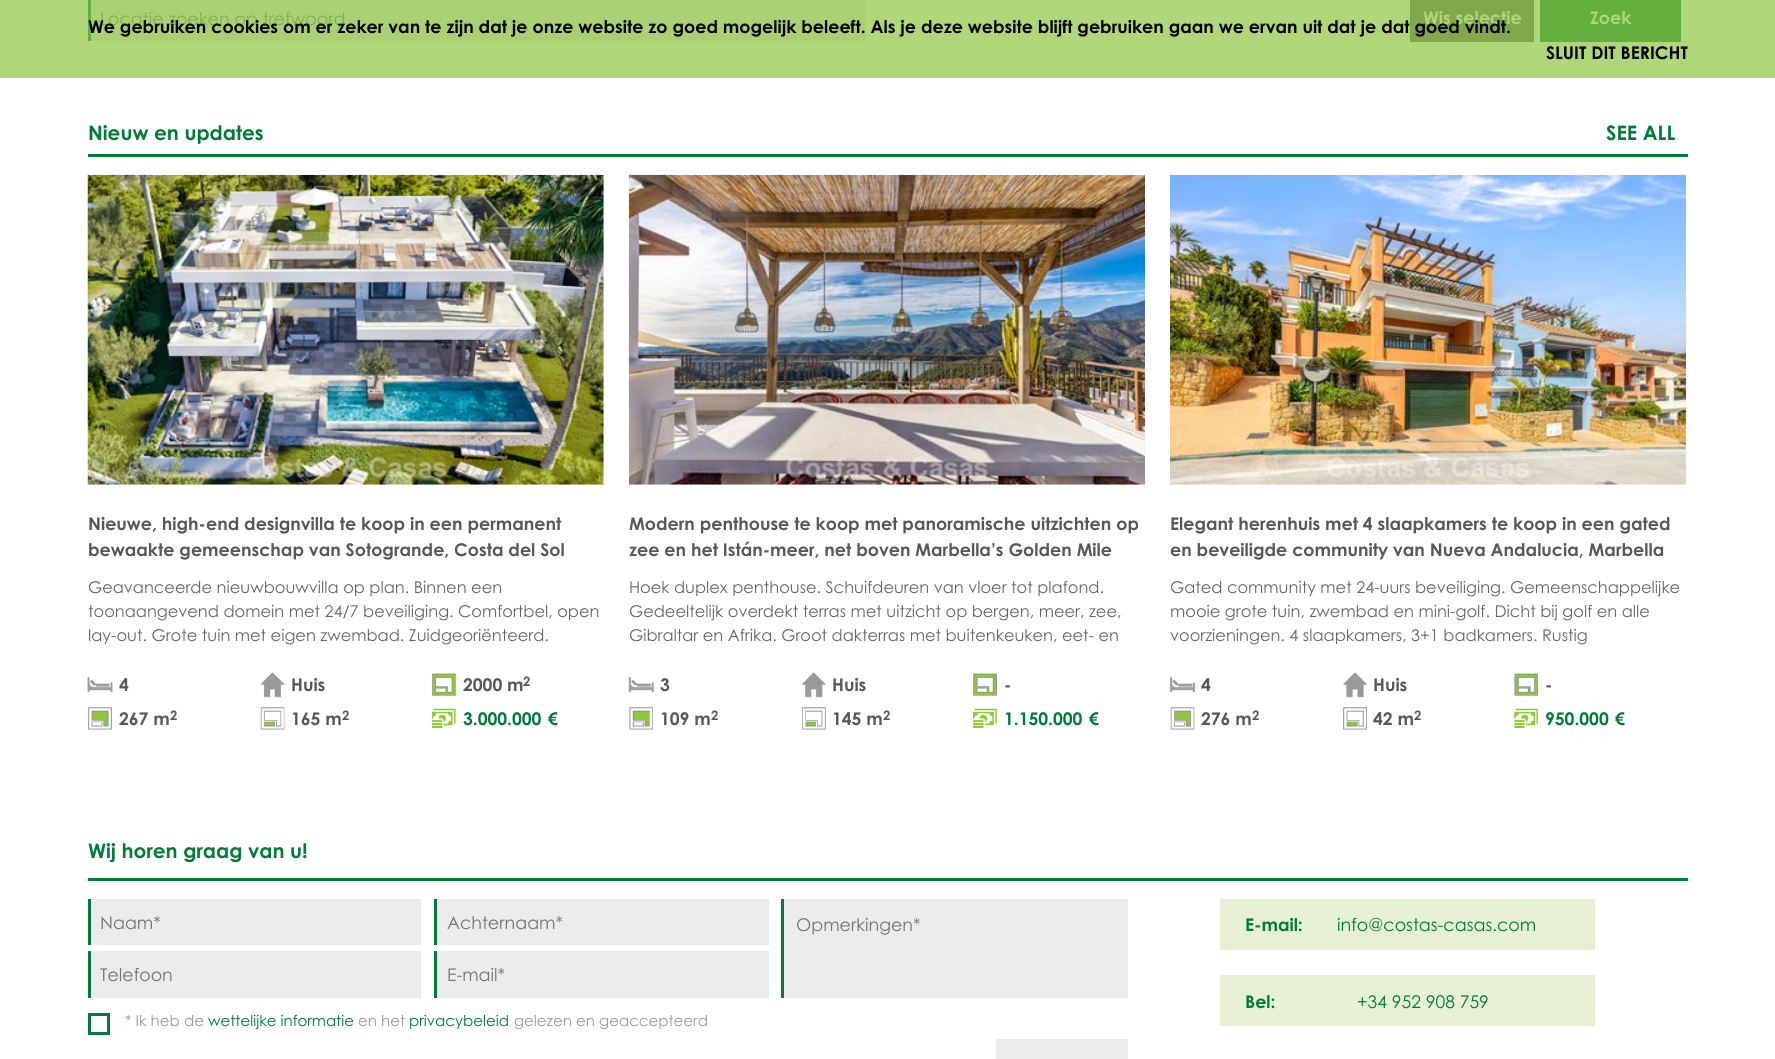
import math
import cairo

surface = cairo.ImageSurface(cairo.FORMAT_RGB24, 1775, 1059)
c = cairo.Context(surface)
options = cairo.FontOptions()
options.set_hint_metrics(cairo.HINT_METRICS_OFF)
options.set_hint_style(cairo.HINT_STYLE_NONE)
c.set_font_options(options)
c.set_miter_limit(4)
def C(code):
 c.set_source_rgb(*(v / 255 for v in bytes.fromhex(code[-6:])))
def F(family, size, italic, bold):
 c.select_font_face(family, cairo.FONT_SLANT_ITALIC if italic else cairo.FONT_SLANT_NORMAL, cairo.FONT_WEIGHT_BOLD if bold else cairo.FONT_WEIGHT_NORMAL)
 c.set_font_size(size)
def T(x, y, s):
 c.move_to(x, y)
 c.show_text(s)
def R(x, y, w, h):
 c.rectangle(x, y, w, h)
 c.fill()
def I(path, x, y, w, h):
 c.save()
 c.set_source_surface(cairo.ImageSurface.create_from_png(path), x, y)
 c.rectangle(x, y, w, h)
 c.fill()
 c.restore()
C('ffffff')
c.paint()
C('afd779')
R(0,0,1775,78)
C('a9d173')
R(91,0,775,41)
C('63b03e')
R(88,0,3,41)
F('Century Gothic',17.5,0,0)
C('86ae4f')
T(100,25,'Locatie zoeken op trefwoord')
C('81a94b')
R(1410,0,124,42)
F('Century Gothic',17.5,0,1)
C('afd779')
T(1423,24,'Wis selectie')
C('63b03e')
R(1540,0,141,42)
C('afd779')
T(1590,24,'Zoek')
C('007b3a')
R(88,154,1600,3)
F('Century Gothic',20,0,1)
T(88,140,'Nieuw en updates')
T(1606,140,'SEE ALL')
I('1.png',87,174,517,311)
F('Century Gothic',17.5,0,1)
C('585858')
T(88,530,'Nieuwe, high-end designvilla te koop in een permanent')
T(88,556,'bewaakte gemeenschap van Sotogrande, Costa del Sol')
F('Century Gothic',16.25,0,0)
C('666666')
T(88,593,'Geavanceerde nieuwbouwvilla op plan. Binnen een')
T(88,617,'toonaangevend domein met 24/7 beveiliging. Comfortbel, open')
T(88,641,'lay-out. Grote tuin met eigen zwembad. Zuidgeoriënteerd.')
I('2.png',87,677,26,16)
F('Century Gothic',17.5,0,1)
C('585858')
T(119,691,'4')
I('3.png',260,672,25,26)
T(291,691,'Huis')
I('4.png',432,673,24,23)
T(463,691,'2000 m')
F('Century Gothic',13,0,1)
T(523,686,'2')
I('5.png',88,707,24,23)
F('Century Gothic',17.5,0,1)
T(119,725,'267 m')
F('Century Gothic',13,0,1)
T(170,720,'2')
I('6.png',260,707,25,23)
F('Century Gothic',17.5,0,1)
T(291,725,'165 m')
F('Century Gothic',13,0,1)
T(342,720,'2')
I('7.png',432,708,24,20)
F('Century Gothic',17.5,0,1)
C('007b3a')
T(463,725,'3.000.000')
T(548,725,'€')
I('8.png',628,174,517,311)
C('585858')
T(629,530,'Modern penthouse te koop met panoramische uitzichten op')
T(629,556,'zee en het Istán-meer, net boven Marbella’s Golden Mile')
F('Century Gothic',16.25,0,0)
C('666666')
T(629,593,'Hoek duplex penthouse. Schuifdeuren van vloer tot plafond.')
T(629,617,'Gedeeltelijk overdekt terras met uitzicht op bergen, meer, zee,')
T(629,641,'Gibraltar en Afrika. Groot dakterras met buitenkeuken, eet- en')
I('9.png',628,677,26,16)
F('Century Gothic',17.5,0,1)
C('585858')
T(660,691,'3')
I('10.png',802,672,24,26)
T(832,691,'Huis')
I('11.png',973,673,24,23)
T(1004,691,'-')
I('12.png',629,707,24,23)
T(660,725,'109 m')
F('Century Gothic',13,0,1)
T(711,720,'2')
I('13.png',802,707,24,23)
F('Century Gothic',17.5,0,1)
T(832,725,'145 m')
F('Century Gothic',13,0,1)
T(883,720,'2')
I('14.png',973,708,24,20)
F('Century Gothic',17.5,0,1)
C('007b3a')
T(1004,725,'1.150.000')
T(1089,725,'€')
I('15.png',1170,174,517,311)
C('585858')
T(1170,530,'Elegant herenhuis met 4 slaapkamers te koop in een gated')
T(1170,556,'en beveiligde community van Nueva Andalucia, Marbella')
F('Century Gothic',16.25,0,0)
C('666666')
T(1170,593,'Gated community met 24-uurs beveiliging. Gemeenschappelijke')
T(1170,617,'mooie grote tuin, zwembad en mini-golf. Dicht bij golf en alle')
T(1170,641,'voorzieningen. 4 slaapkamers, 3+1 badkamers. Rustig')
I('16.png',1170,677,25,16)
F('Century Gothic',17.5,0,1)
C('585858')
T(1201,691,'4')
I('17.png',1343,672,24,26)
T(1373,691,'Huis')
I('18.png',1514,673,24,23)
T(1545,691,'-')
I('19.png',1170,707,25,23)
T(1201,725,'276 m')
F('Century Gothic',13,0,1)
T(1252,720,'2')
I('20.png',1343,707,24,23)
F('Century Gothic',17.5,0,1)
T(1373,725,'42 m')
F('Century Gothic',13,0,1)
T(1414,720,'2')
I('21.png',1514,708,24,20)
F('Century Gothic',17.5,0,1)
C('007b3a')
T(1545,725,'950.000')
T(1615,725,'€')
R(88,878,1600,3)
F('Century Gothic',20,0,1)
T(88,858,'Wij horen graag van u!')
C('ebebeb')
R(91,899,330,46)
C('007b3a')
R(88,899,3,46)
F('Century Gothic',17.5,0,0)
C('757575')
T(100,929,'Naam*')
C('ebebeb')
R(91,951,330,47)
C('007b3a')
R(88,951,3,47)
C('757575')
T(100,981,'Telefoon')
C('ebebeb')
R(437,899,332,46)
C('007b3a')
R(434,899,3,46)
C('757575')
T(447,929,'Achternaam*')
C('ebebeb')
R(437,951,332,47)
C('007b3a')
R(434,951,3,47)
C('757575')
T(447,981,'E-mail*')
C('ebebeb')
R(784,899,344,99)
C('007b3a')
R(781,899,3,99)
C('757575')
T(796,931,'Opmerkingen*')
c.rectangle(89.5,1014.5,19,19)
C('007b3a')
c.set_line_width(3)
c.stroke()
F('Century Gothic',15,0,0)
C('999999')
T(125,1026,'* Ik heb de')
C('007b3a')
T(208,1026,'wettelijke informatie')
C('999999')
T(358,1026,'en het')
C('007b3a')
T(409,1026,'privacybeleid')
C('999999')
T(514,1026,'gelezen en geaccepteerd')
C('ebebeb')
R(996,1039,132,20)
C('e6f0d5')
R(1220,899,375,51)
F('Century Gothic',17.5,0,1)
C('007b3a')
T(1245,931,'E-mail:')
F('Century Gothic',17.5,0,0)
T(1337,931,'info@costas-casas.com')
C('e6f0d5')
R(1220,975,375,51)
F('Century Gothic',17.5,0,1)
C('007b3a')
T(1245,1008,'Bel:')
F('Century Gothic',17.5,0,0)
T(1357,1008,'+34 952 908 759')
F('Century Gothic',17.5,0,1)
C('000000')
T(88,33,'We gebruiken cookies om er zeker van te zijn dat je onze website zo goed mogelijk beleeft. Als je deze website blijft gebruiken gaan we ervan uit dat je dat goed vindt.')
T(1546,59,'SLUIT DIT BERICHT')
surface.write_to_png('o.png')
